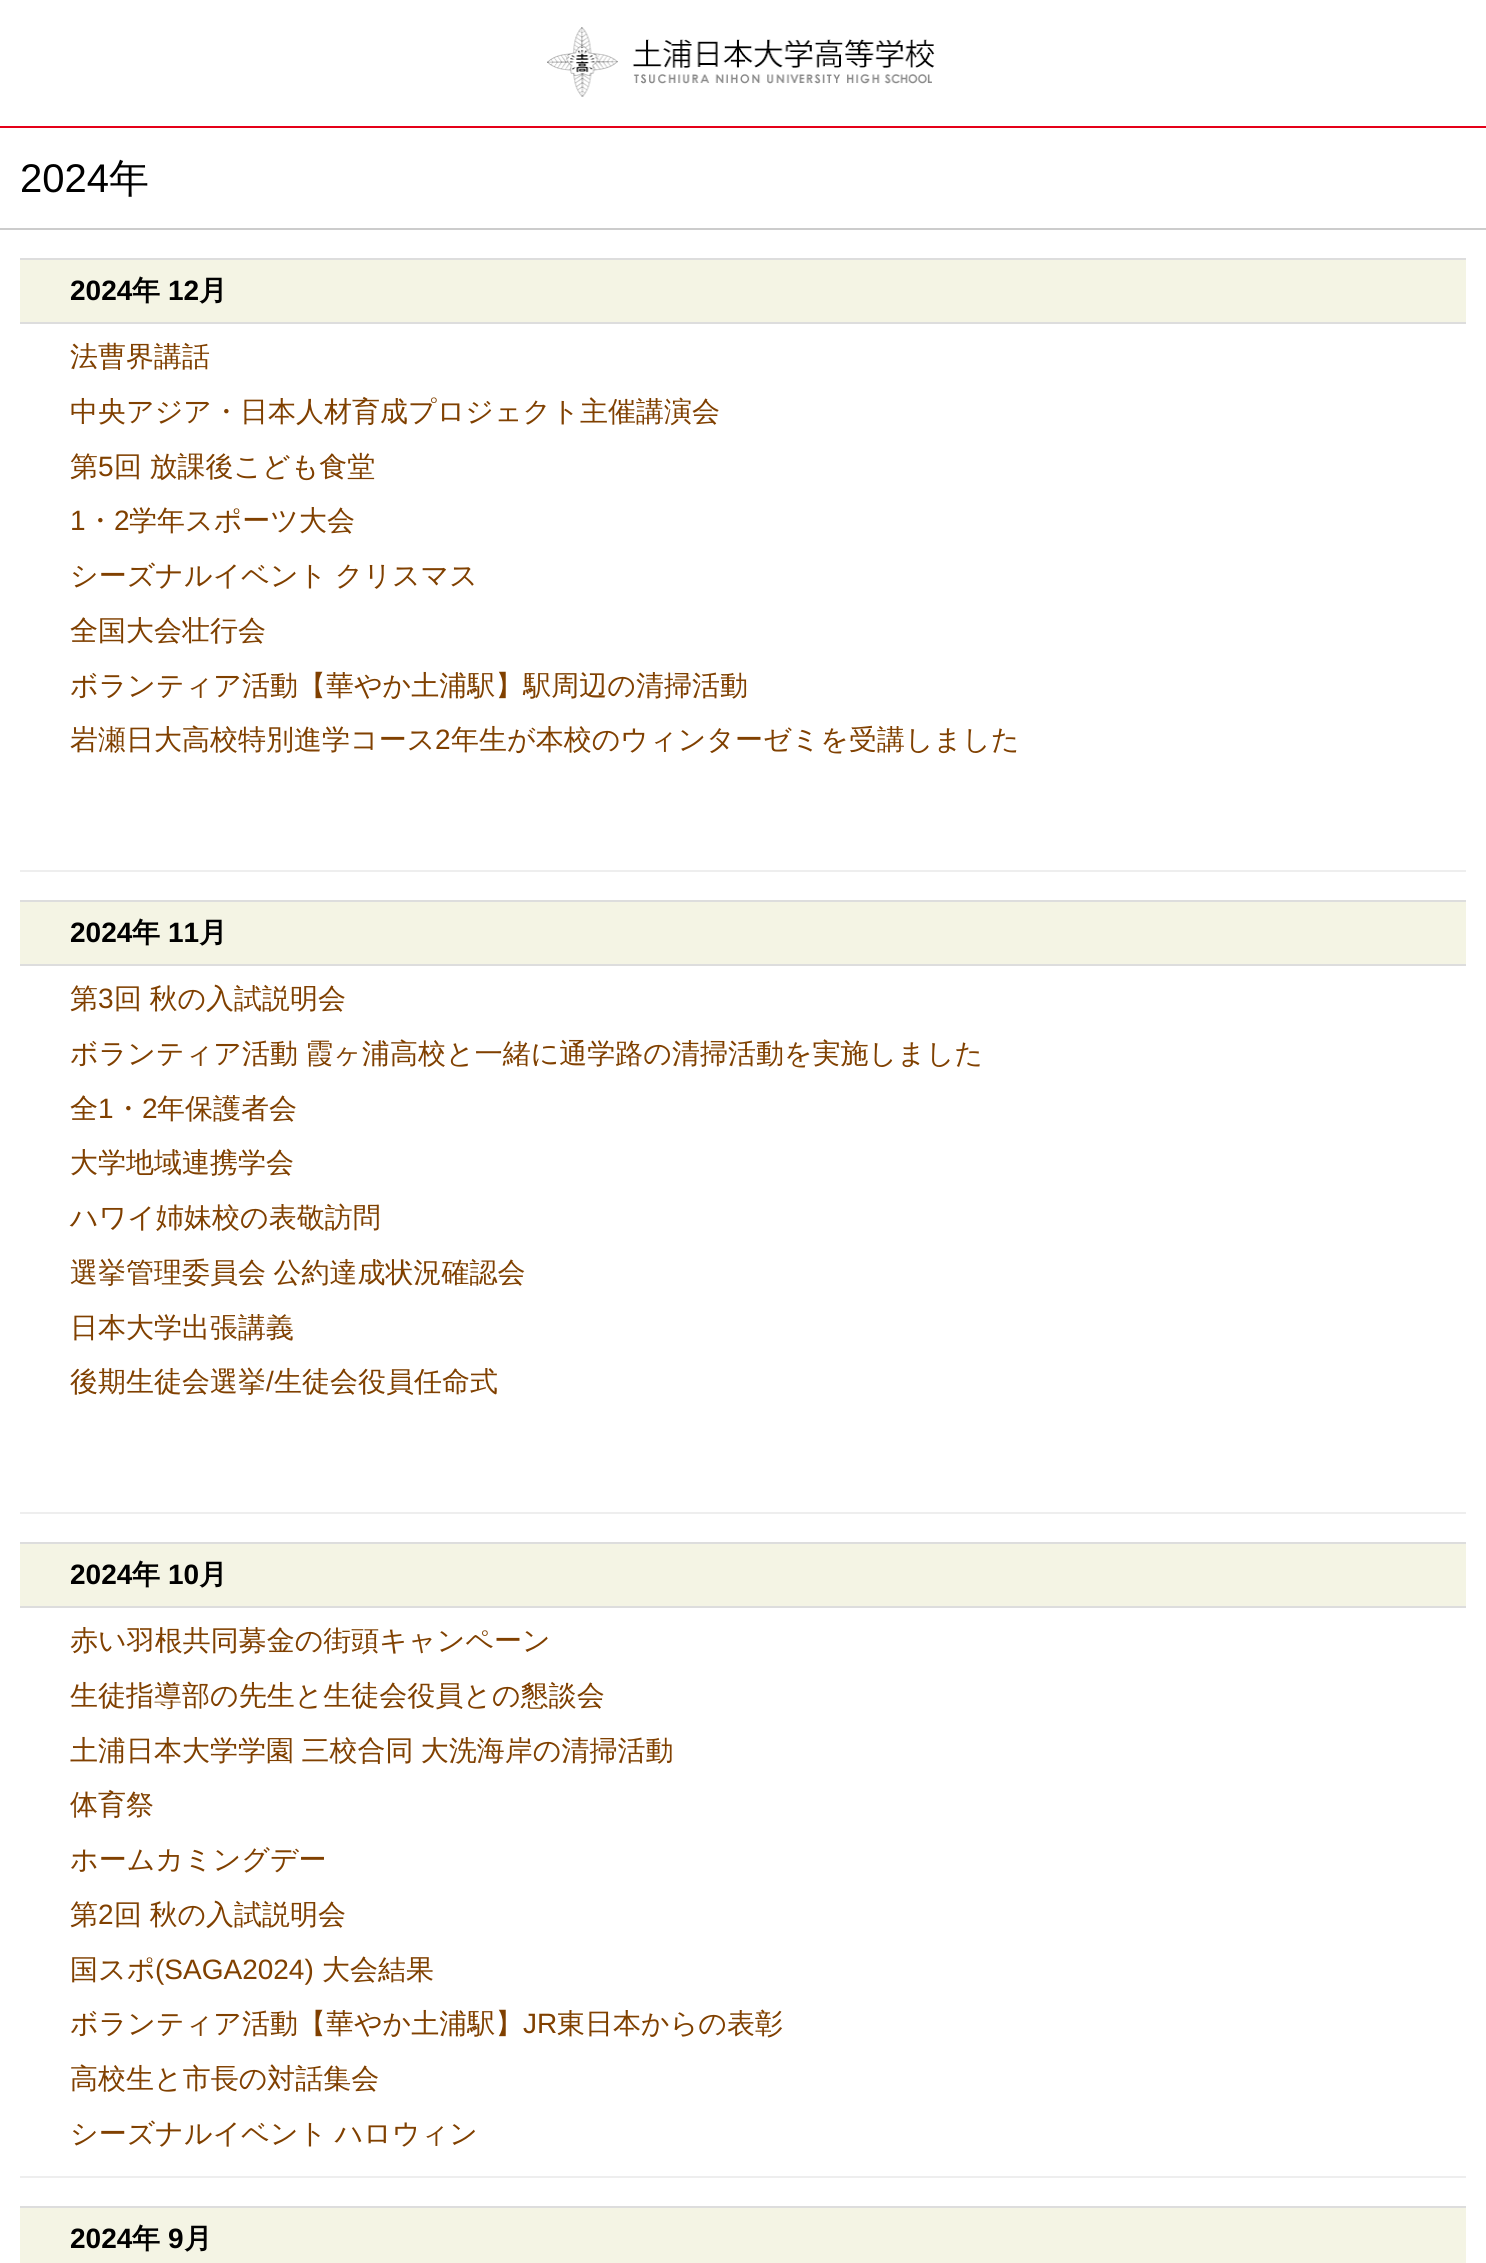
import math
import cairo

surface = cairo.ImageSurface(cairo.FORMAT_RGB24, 1486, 2263)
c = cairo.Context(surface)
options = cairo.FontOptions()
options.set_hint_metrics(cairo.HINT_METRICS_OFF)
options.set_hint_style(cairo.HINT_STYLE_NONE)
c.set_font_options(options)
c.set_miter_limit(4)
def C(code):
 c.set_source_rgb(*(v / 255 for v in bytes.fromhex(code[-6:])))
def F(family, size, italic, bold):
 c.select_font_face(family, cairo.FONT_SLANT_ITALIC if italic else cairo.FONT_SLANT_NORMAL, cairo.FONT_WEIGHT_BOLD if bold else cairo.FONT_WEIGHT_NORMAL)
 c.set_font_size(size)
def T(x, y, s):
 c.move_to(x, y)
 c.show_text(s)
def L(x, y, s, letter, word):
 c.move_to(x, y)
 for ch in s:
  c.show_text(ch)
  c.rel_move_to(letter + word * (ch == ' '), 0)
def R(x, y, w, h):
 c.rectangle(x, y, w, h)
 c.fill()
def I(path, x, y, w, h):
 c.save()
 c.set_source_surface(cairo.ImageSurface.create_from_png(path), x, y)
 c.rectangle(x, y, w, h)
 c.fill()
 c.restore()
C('ffffff')
c.paint()
I('1.png',547,27,388,70)
C('e50019')
R(0,126,1486,2)
C('cccccc')
R(0,228,1486,2)
F('Liberation Sans',40,0,0)
C('000000')
T(20,192,'2024')
F('WenQuanYi Zen Hei Medium',40,0,0)
T(109,192,'年')
C('dddddd')
R(20,258,1446,2)
R(20,322,1446,2)
C('f4f4e4')
R(20,260,1446,62)
F('Liberation Sans',28,0,1)
C('000000')
T(70,300,'2024')
F('WenQuanYi Zen Hei',28,0,1)
T(132,300,'年')
F('Liberation Sans',28,0,1)
T(168,300,'12')
F('WenQuanYi Zen Hei',28,0,1)
T(199,300,'月')
C('eeeeee')
R(20,870,1446,2)
F('WenQuanYi Zen Hei Medium',28,0,0)
C('804000')
T(70,366,'法曹界講話')
T(70,421,'中央アジア・日本人材育成プロジェクト主催講演会')
T(70,476,'第')
F('Liberation Sans',28,0,0)
T(98,476,'5')
F('WenQuanYi Zen Hei Medium',28,0,0)
L(114,476,'回 放課後こども食堂',0,-1)
F('Liberation Sans',28,0,0)
T(70,530,'1')
F('WenQuanYi Zen Hei Medium',28,0,0)
T(86,530,'・')
F('Liberation Sans',28,0,0)
T(114,530,'2')
F('WenQuanYi Zen Hei Medium',28,0,0)
T(129,530,'学年スポーツ大会')
L(70,585,'シーズナルイベント クリスマス',0,-1)
T(70,640,'全国大会壮行会')
T(70,695,'ボランティア活動【華やか土浦駅】駅周辺の清掃活動')
T(70,749,'岩瀬日大高校特別進学コース')
F('Liberation Sans',28,0,0)
T(435,749,'2')
F('WenQuanYi Zen Hei Medium',28,0,0)
T(451,749,'年生が本校のウィンターゼミを受講しました')
C('dddddd')
R(20,900,1446,2)
R(20,964,1446,2)
C('f4f4e4')
R(20,902,1446,62)
F('Liberation Sans',28,0,1)
C('000000')
T(70,942,'2024')
F('WenQuanYi Zen Hei',28,0,1)
T(132,942,'年')
F('Liberation Sans',28,0,1)
T(168,942,'11')
F('WenQuanYi Zen Hei',28,0,1)
T(199,942,'月')
C('eeeeee')
R(20,1512,1446,2)
F('WenQuanYi Zen Hei Medium',28,0,0)
C('804000')
T(70,1008,'第')
F('Liberation Sans',28,0,0)
T(98,1008,'3')
F('WenQuanYi Zen Hei Medium',28,0,0)
L(114,1008,'回 秋の入試説明会',0,-1)
L(70,1063,'ボランティア活動 霞ヶ浦高校と一緒に通学路の清掃活動を実施しました',0,-1)
T(70,1118,'全')
F('Liberation Sans',28,0,0)
T(98,1118,'1')
F('WenQuanYi Zen Hei Medium',28,0,0)
T(114,1118,'・')
F('Liberation Sans',28,0,0)
T(142,1118,'2')
F('WenQuanYi Zen Hei Medium',28,0,0)
T(157,1118,'年保護者会')
T(70,1172,'大学地域連携学会')
T(70,1227,'ハワイ姉妹校の表敬訪問')
L(70,1282,'選挙管理委員会 公約達成状況確認会',0,-1)
T(70,1337,'日本大学出張講義')
T(70,1391,'後期生徒会選挙')
F('Liberation Sans',28,0,0)
T(266,1391,'/')
F('WenQuanYi Zen Hei Medium',28,0,0)
T(274,1391,'生徒会役員任命式')
C('dddddd')
R(20,1542,1446,2)
R(20,1606,1446,2)
C('f4f4e4')
R(20,1544,1446,62)
F('Liberation Sans',28,0,1)
C('000000')
T(70,1584,'2024')
F('WenQuanYi Zen Hei',28,0,1)
T(132,1584,'年')
F('Liberation Sans',28,0,1)
T(168,1584,'10')
F('WenQuanYi Zen Hei',28,0,1)
T(199,1584,'月')
C('eeeeee')
R(20,2176,1446,2)
F('WenQuanYi Zen Hei Medium',28,0,0)
C('804000')
T(70,1650,'赤い羽根共同募金の街頭キャンペーン')
T(70,1705,'生徒指導部の先生と生徒会役員との懇談会')
L(70,1760,'土浦日本大学学園 三校合同 大洗海岸の清掃活動',0,-1)
T(70,1814,'体育祭')
T(70,1869,'ホームカミングデー')
T(70,1924,'第')
F('Liberation Sans',28,0,0)
T(98,1924,'2')
F('WenQuanYi Zen Hei Medium',28,0,0)
L(114,1924,'回 秋の入試説明会',0,-1)
T(70,1979,'国スポ')
F('Liberation Sans',28,0,0)
T(155,1979,'(SAGA2024)')
F('WenQuanYi Zen Hei Medium',28,0,0)
T(322,1979,'大会結果')
T(70,2033,'ボランティア活動【華やか土浦駅】')
F('Liberation Sans',28,0,0)
T(523,2033,'JR')
F('WenQuanYi Zen Hei Medium',28,0,0)
T(557,2033,'東日本からの表彰')
T(70,2088,'高校生と市長の対話集会')
L(70,2143,'シーズナルイベント ハロウィン',0,-1)
C('dddddd')
R(20,2206,1446,2)
C('f4f4e4')
R(20,2208,1446,55)
F('Liberation Sans',28,0,1)
C('000000')
T(70,2248,'2024')
F('WenQuanYi Zen Hei',28,0,1)
T(132,2248,'年')
F('Liberation Sans',28,0,1)
T(168,2248,'9')
F('WenQuanYi Zen Hei',28,0,1)
T(184,2248,'月')
surface.write_to_png('o.png')
